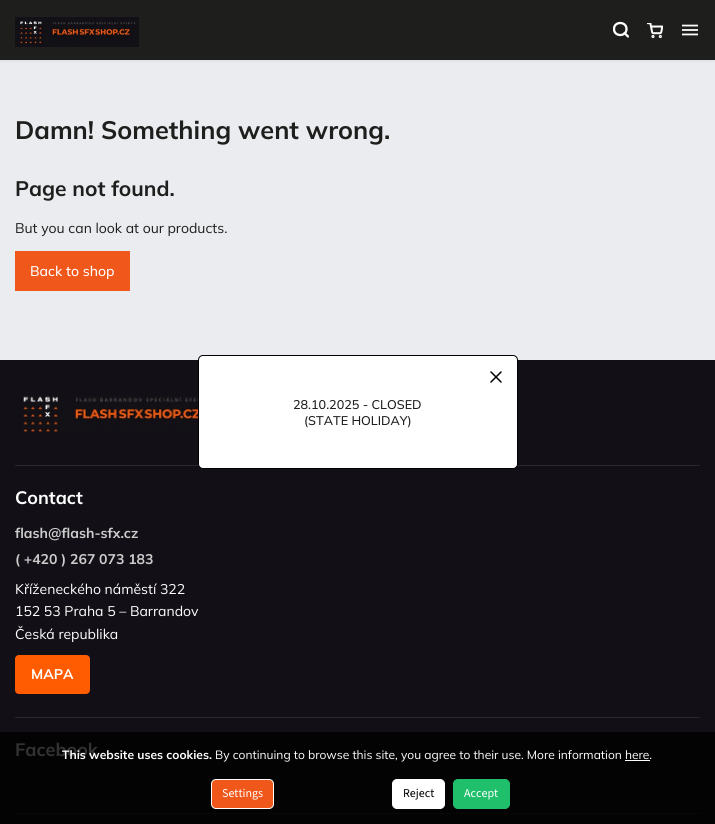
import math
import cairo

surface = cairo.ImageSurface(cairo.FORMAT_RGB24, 715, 824)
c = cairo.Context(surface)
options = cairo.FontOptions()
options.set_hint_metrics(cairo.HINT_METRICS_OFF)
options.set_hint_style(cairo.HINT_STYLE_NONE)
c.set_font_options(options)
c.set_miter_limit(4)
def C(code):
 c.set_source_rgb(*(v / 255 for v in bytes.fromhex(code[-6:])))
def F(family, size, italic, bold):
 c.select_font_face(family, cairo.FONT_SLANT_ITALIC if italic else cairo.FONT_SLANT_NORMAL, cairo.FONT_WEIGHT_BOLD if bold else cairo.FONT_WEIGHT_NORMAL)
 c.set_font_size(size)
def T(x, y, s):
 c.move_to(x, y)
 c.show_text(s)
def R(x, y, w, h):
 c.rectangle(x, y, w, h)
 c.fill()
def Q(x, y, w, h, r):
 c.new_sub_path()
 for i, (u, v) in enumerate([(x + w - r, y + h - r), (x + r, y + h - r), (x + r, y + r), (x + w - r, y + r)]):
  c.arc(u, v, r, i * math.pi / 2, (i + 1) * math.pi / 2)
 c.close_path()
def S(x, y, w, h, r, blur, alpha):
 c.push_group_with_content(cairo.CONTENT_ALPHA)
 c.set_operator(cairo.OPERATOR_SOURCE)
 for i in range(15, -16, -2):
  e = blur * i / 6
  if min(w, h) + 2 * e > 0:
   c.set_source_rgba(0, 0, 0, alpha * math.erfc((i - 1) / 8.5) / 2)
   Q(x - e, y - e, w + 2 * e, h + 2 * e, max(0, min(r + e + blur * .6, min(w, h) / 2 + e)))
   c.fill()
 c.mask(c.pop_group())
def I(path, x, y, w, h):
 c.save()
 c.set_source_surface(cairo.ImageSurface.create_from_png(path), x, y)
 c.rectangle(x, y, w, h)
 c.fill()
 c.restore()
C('eaecf0')
c.paint()
C('000000')
S(0,0,715,60,0,2.5,.1)
C('1e1e1c')
R(0,0,715,60)
I('1.png',15,17,124,30)
c.save()
c.rectangle(613,21,16,18)
c.clip()
c.new_path()
c.move_to(628,36.5)
c.line_to(624.5,33)
c.move_to(626.5,29)
c.curve_to(626.5,37,614,37,614,29)
c.curve_to(614,21,626.5,21,626.5,29)
c.close_path()
C('ffffff')
c.set_line_width(2.3)
c.set_line_cap(cairo.LINE_CAP_ROUND)
c.set_line_join(cairo.LINE_JOIN_ROUND)
c.stroke()
c.restore()
I('2.png',682,24,16,12)
I('3.png',647,23,16,16)
F('Mulish',25.25,0,1)
T(15,139,'Damn! Something went wrong.')
F('Mulish',21,0,1)
T(15,196,'Page not found.')
F('Mulish',14,0,0)
T(15,233,'But you can look at our products.')
C('f0571a')
R(15,251,115,40)
F('Mulish Medium',14,0,0)
C('ffffff')
T(30,276,'Back to shop')
C('121016')
R(0,360,715,372)
C('2a282d')
R(15,465,685,1)
C('ffffff')
Q(198.5,355.5,319,113,4.5)
c.fill_preserve()
C('000000')
c.set_line_width(1)
c.stroke()
I('4.png',490,371,12,12)
F('Mulish Medium',12.6,0,0)
C('1e1e1c')
T(293,409,'28.10.2025 - CLOSED')
T(304,425,'(STATE HOLIDAY)')
C('040304')
R(0,732,715,92)
I('5.png',23,396,175,37)
C('2a282d')
R(15,717,685,1)
F('Mulish',18,0,1)
C('ffffff')
T(15,504,'Contact')
F('Mulish',14,0,1)
C('cccccc')
T(15,538,'flash@flash-sfx.cz')
T(15,564,'( +420 ) 267 073 183')
F('Mulish',14,0,0)
C('ffffff')
T(15,594,'Kříženeckého náměstí 322')
T(15,616,'152 53 Praha 5 – Barrandov')
T(15,639,'Česká republika')
C('ff5b00')
Q(15,655,75,39,4)
c.fill()
F('Mulish',14,0,1)
C('ffffff')
T(31,679,'MAPA')
C('080809')
R(15,813,685,1)
F('Mulish',18,0,1)
C('333333')
T(15,756,'Facebook')
F('Mulish',12,0,1)
C('ffffff')
T(62,759,'This website uses cookies.')
F('Mulish',12,0,0)
T(215,759,'By continuing to browse this site, you agree to their use. More information here.')
R(625,760,25,1)
C('f0571a')
Q(211.5,779.5,62,29,4.5)
c.fill_preserve()
C('ffffff')
c.stroke()
F('Source Sans 3',12,0,0)
T(222,797,'Settings')
Q(392.5,779.5,52,29,4.5)
c.fill_preserve()
c.stroke()
C('000000')
T(403,797,'Reject')
C('20bf6b')
Q(453.5,779.5,56,29,4.5)
c.fill_preserve()
c.stroke()
C('ffffff')
T(464,797,'Accept')
surface.write_to_png('o.png')
